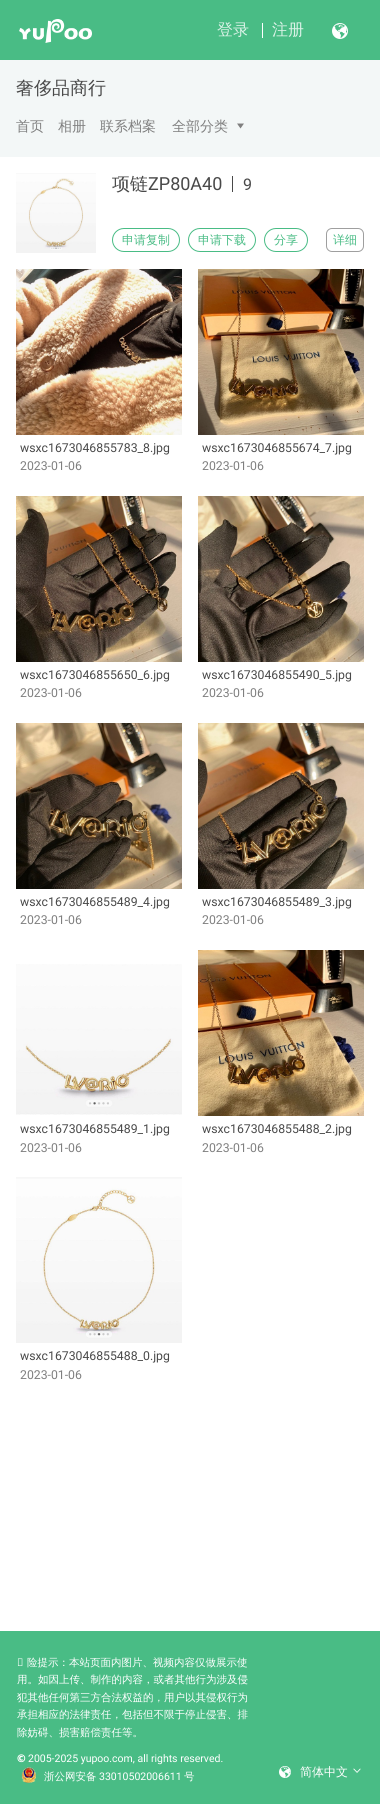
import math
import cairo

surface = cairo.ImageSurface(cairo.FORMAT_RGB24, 380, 1804)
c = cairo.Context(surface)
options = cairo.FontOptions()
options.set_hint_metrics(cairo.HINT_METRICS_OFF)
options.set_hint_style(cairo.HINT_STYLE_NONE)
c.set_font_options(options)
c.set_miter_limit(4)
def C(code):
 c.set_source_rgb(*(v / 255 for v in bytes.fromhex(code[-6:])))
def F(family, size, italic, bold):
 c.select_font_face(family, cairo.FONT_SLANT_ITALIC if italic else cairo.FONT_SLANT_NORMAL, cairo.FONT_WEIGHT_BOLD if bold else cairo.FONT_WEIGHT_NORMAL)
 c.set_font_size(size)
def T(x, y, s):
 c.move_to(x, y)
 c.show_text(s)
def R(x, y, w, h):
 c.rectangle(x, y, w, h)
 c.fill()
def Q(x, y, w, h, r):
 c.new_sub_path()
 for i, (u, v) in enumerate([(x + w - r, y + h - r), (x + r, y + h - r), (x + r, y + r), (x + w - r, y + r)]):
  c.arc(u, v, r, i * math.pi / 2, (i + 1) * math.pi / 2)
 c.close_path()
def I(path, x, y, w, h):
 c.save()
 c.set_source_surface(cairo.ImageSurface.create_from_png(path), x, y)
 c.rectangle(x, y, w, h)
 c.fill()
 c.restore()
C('ffffff')
c.paint()
C('49bc85')
R(0,0,380,60)
I('1.png',19,19,73,24)
F('WenQuanYi Zen Hei Medium',16,0,0)
C('dbf2e7')
T(217,35,'登录')
C('ffffff')
R(262,23,1,15)
C('dbf2e7')
T(272,35,'注册')
I('2.png',332,23,16,16)
C('f3f7f7')
R(0,60,380,97)
F('WenQuanYi Zen Hei Medium',18,0,0)
C('494949')
T(16,94,'奢侈品商行')
F('WenQuanYi Zen Hei Medium',14,0,0)
C('7f7f7f')
T(16,131,'首页')
T(58,131,'相册')
T(100,131,'联系档案')
T(172,131,'全部分类')
c.new_path()
c.move_to(240.5,128.5)
c.line_to(237,123.5)
c.line_to(244,123.5)
c.close_path()
c.fill()
I('3.png',16,173,80,80)
F('WenQuanYi Zen Hei Medium',18,0,0)
C('494949')
T(112,190,'项链')
F('Roboto',18,0,0)
T(148,190,'ZP80A40')
R(232,176,1,16)
F('Roboto',16,0,0)
T(243,190,'9')
Q(112.5,228.5,67,23,11.5)
C('49bc85')
c.set_line_width(1)
c.stroke()
F('WenQuanYi Zen Hei Medium',12,0,0)
T(122,244,'申请复制')
Q(188.5,228.5,67,23,11.5)
c.stroke()
T(198,244,'申请下载')
Q(264.5,228.5,43,23,11.5)
c.stroke()
T(274,244,'分享')
Q(326.5,228.5,37,23,5.5)
C('9f9f9f')
c.stroke()
C('49bc85')
T(333,244,'详细')
I('4.png',16,269,166,166)
F('Roboto',12.25,0,0)
C('494949')
T(20,452,'wsxc1673046855783_8.jpg')
C('7f7f7f')
T(20,470,'2023-01-06')
I('5.png',198,269,166,166)
C('494949')
T(202,452,'wsxc1673046855674_7.jpg')
C('7f7f7f')
T(202,470,'2023-01-06')
I('6.png',16,496,166,166)
C('494949')
T(20,679,'wsxc1673046855650_6.jpg')
C('7f7f7f')
T(20,697,'2023-01-06')
I('7.png',198,496,166,166)
C('494949')
T(202,679,'wsxc1673046855490_5.jpg')
C('7f7f7f')
T(202,697,'2023-01-06')
I('8.png',16,723,166,166)
C('494949')
T(20,906,'wsxc1673046855489_4.jpg')
C('7f7f7f')
T(20,924,'2023-01-06')
I('9.png',198,723,166,166)
C('494949')
T(202,906,'wsxc1673046855489_3.jpg')
C('7f7f7f')
T(202,924,'2023-01-06')
I('10.png',16,964,166,151)
C('494949')
T(20,1133,'wsxc1673046855489_1.jpg')
C('7f7f7f')
T(20,1152,'2023-01-06')
I('11.png',198,950,166,166)
C('494949')
T(202,1133,'wsxc1673046855488_2.jpg')
C('7f7f7f')
T(202,1152,'2023-01-06')
I('12.png',16,1177,166,166)
C('494949')
T(20,1360,'wsxc1673046855488_0.jpg')
C('7f7f7f')
T(20,1379,'2023-01-06')
C('49bc85')
R(0,1631,380,173)
F('Noto Sans',10.5,0,0)
C('ffffff')
T(17,1666,'风')
F('WenQuanYi Zen Hei Medium',10.5,0,0)
T(27,1666,'险提示：本站页面内图片、视频内容仅做展示使')
T(17,1683,'用。如因上传、制作的内容，或者其他行为涉及侵')
T(17,1701,'犯其他任何第三方合法权益的，用户以其侵权行为')
T(17,1718,'承担相应的法律责任，包括但不限于停止侵害、排')
T(17,1736,'除妨碍、损害赔偿责任等。')
F('Noto Sans Black',10.5,0,0)
T(17,1762,'©')
F('Roboto',10.5,0,0)
T(28,1762,'2005-2025 yupoo.com, all rights reserved.')
I('13.png',21,1767,15,16)
F('WenQuanYi Zen Hei Medium',10.5,0,0)
T(44,1780,'浙公网安备')
F('Roboto',10.5,0,0)
T(99,1780,'33010502006611')
F('WenQuanYi Zen Hei Medium',10.5,0,0)
T(184,1780,'号')
I('14.png',279,1766,12,12)
F('WenQuanYi Zen Hei Medium',12,0,0)
T(300,1776,'简体中文')
I('15.png',353,1768,8,5)
surface.write_to_png('o.png')
